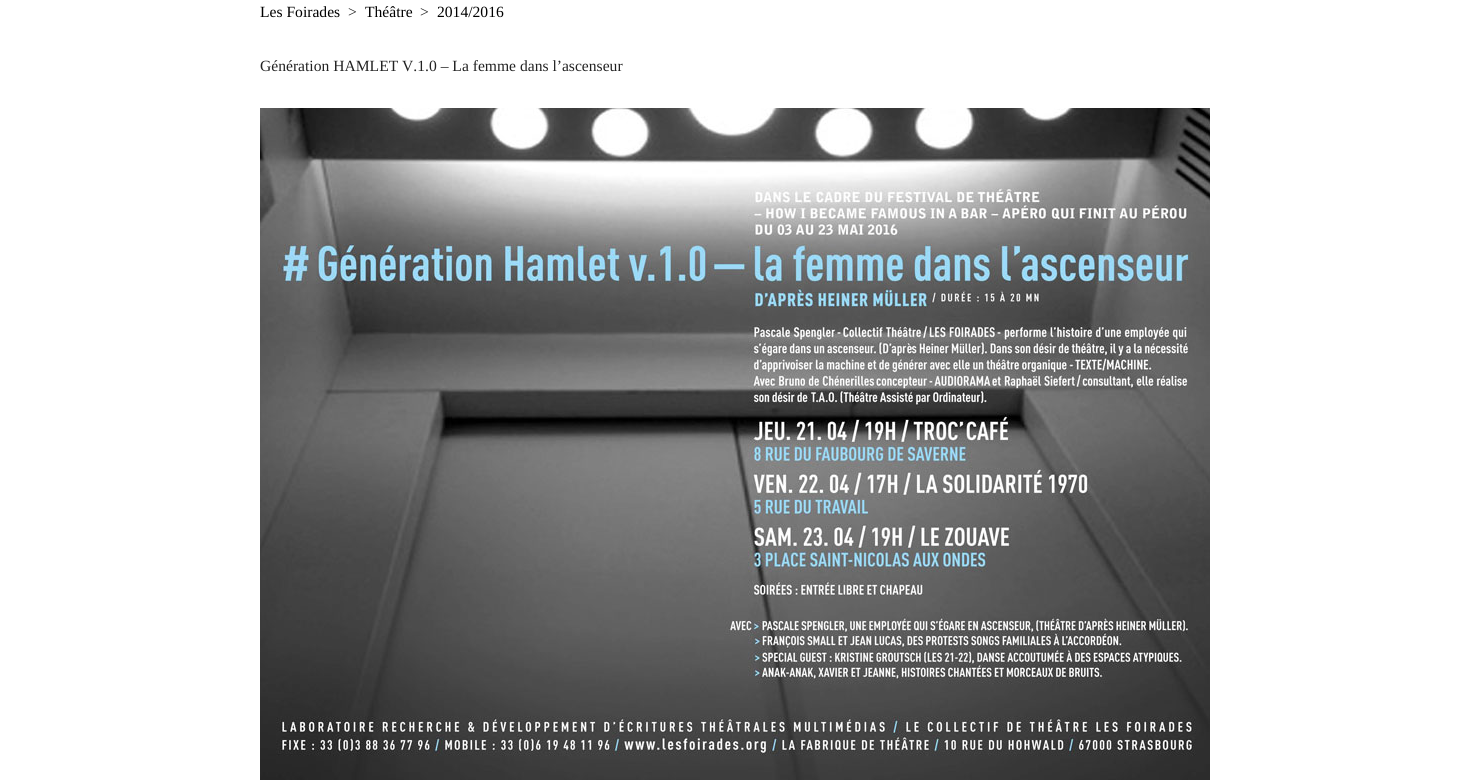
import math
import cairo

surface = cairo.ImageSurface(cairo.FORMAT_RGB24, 1470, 782)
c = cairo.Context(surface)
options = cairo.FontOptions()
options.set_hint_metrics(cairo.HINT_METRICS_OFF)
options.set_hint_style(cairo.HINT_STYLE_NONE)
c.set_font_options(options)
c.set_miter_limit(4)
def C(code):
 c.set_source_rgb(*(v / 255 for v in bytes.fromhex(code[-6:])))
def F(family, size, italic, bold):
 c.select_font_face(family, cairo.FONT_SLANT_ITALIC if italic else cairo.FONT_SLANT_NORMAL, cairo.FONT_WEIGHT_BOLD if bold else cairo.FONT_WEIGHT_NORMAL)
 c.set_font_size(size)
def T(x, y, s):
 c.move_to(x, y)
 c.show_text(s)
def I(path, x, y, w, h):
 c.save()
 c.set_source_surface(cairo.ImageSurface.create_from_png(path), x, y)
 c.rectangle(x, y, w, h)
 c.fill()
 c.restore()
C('ffffff')
c.paint()
F('Liberation Serif',15.6,0,0)
C('000000')
T(260,17,'Les Foirades')
C('222222')
T(348,17,'>')
C('000000')
T(365,17,'Théâtre')
C('222222')
T(420,17,'>')
C('000000')
T(437,17,'2014/2016')
C('222222')
T(260,71,'Génération HAMLET V.1.0 – La femme dans l’ascenseur')
I('1.png',260,108,950,672)
surface.write_to_png('o.png')
